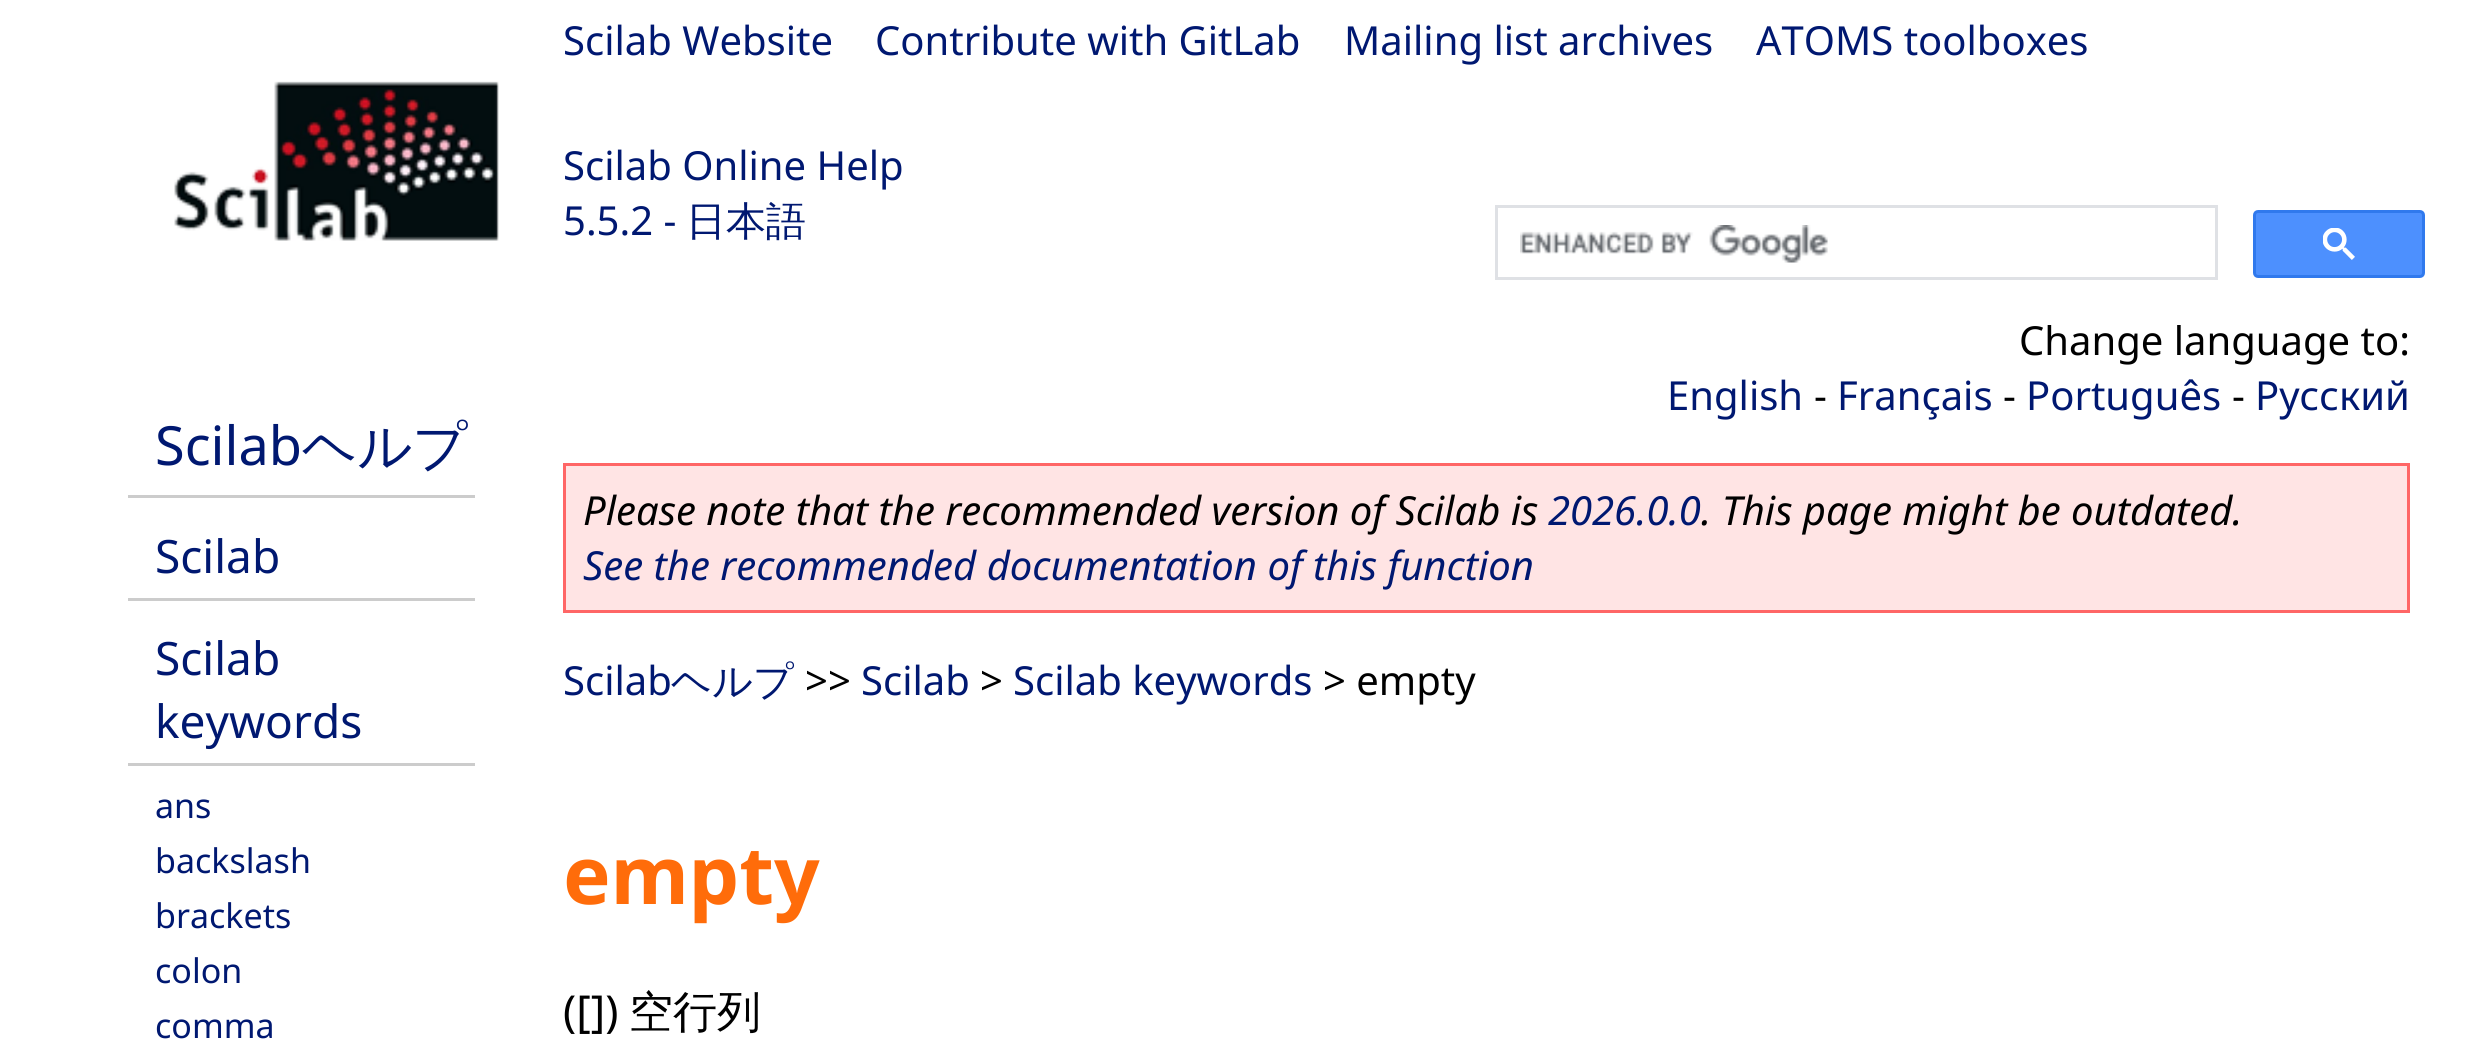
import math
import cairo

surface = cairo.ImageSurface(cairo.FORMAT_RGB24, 2472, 1058)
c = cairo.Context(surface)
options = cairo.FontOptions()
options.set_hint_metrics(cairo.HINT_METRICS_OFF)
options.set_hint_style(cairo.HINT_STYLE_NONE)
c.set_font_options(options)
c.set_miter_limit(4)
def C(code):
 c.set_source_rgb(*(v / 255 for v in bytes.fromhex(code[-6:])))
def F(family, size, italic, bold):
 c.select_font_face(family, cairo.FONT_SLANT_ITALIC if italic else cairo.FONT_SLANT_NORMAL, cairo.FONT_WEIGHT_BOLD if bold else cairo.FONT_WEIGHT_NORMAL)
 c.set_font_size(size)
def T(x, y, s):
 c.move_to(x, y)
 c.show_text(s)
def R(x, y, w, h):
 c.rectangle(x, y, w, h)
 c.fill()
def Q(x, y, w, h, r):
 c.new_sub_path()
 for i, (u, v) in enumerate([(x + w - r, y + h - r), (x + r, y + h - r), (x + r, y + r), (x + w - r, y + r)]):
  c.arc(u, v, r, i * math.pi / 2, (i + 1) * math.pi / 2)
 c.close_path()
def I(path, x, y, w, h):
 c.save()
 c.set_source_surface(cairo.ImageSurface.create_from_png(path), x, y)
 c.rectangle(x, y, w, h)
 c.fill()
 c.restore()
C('ffffff')
c.paint()
I('1.png',174,81,325,160)
F('Noto Sans',40,0,0)
C('001871')
T(563,55,'Scilab Website')
T(875,55,'Contribute with GitLab')
T(1344,55,'Mailing list archives')
T(1756,55,'ATOMS toolboxes')
T(563,180,'Scilab Online Help')
T(563,235,'5.5.2 -')
F('WenQuanYi Zen Hei Medium',40,0,0)
T(686,235,'日本語')
F('Noto Sans',40,0,0)
C('000000')
T(2019,355,'Change language to:')
C('ffffff')
R(2047,324,134,1)
c.rectangle(1496.5,206.5,720,72)
C('dfe1e5')
c.set_line_width(3)
c.stroke()
I('2.png',1520,225,308,38)
C('4d90fe')
Q(2254.5,211.5,169,65,3.5)
c.fill_preserve()
C('3079ed')
c.stroke()
I('3.png',2323,228,32,32)
C('cccccc')
R(128,495,347,3)
F('Noto Sans',54,0,0)
C('001871')
T(155,465,'Scilab')
F('WenQuanYi Zen Hei Medium',54,0,0)
T(302,465,'ヘルプ')
C('cccccc')
R(128,598,347,3)
F('Noto Sans',46,0,0)
C('001871')
T(155,573,'Scilab')
C('cccccc')
R(128,763,347,3)
C('001871')
T(155,675,'Scilab')
T(155,738,'keywords')
F('Noto Sans',34,0,0)
T(155,818,'ans')
T(155,873,'backslash')
T(155,928,'brackets')
T(155,983,'colon')
T(155,1038,'comma')
F('Noto Sans',40,0,0)
T(1667,410,'English')
C('000000')
T(1814,410,'-')
C('001871')
T(1837,410,'Français')
C('000000')
T(2003,410,'-')
C('001871')
T(2026,410,'Português')
C('000000')
T(2232,410,'-')
C('001871')
T(2255,410,'Русский')
C('ffe4e4')
c.rectangle(564.5,464.5,1844,147)
c.fill_preserve()
C('ff6666')
c.stroke()
F('Noto Sans',40,1,0)
C('000000')
T(583,525,'Please note that the recommended version of Scilab is')
C('001871')
T(1548,525,'2026.0.0')
C('000000')
T(1701,525,'. This page might be outdated.')
C('001871')
T(583,580,'See the recommended documentation of this function')
F('Noto Sans',40,0,0)
T(563,695,'Scilab')
F('WenQuanYi Zen Hei Medium',40,0,0)
T(671,695,'ヘルプ')
F('Noto Sans',40,0,0)
C('000000')
T(805,695,'>>')
C('001871')
T(861,695,'Scilab')
C('000000')
T(980,695,'>')
C('001871')
T(1013,695,'Scilab keywords')
C('000000')
T(1323,695,'> empty')
F('Noto Sans',80,0,1)
C('ff6c0a')
T(563,904,'empty')
F('Noto Sans',44,0,0)
C('000000')
T(563,1027,'([])')
F('WenQuanYi Zen Hei Medium',44,0,0)
T(629,1027,'空行列')
surface.write_to_png('o.png')
